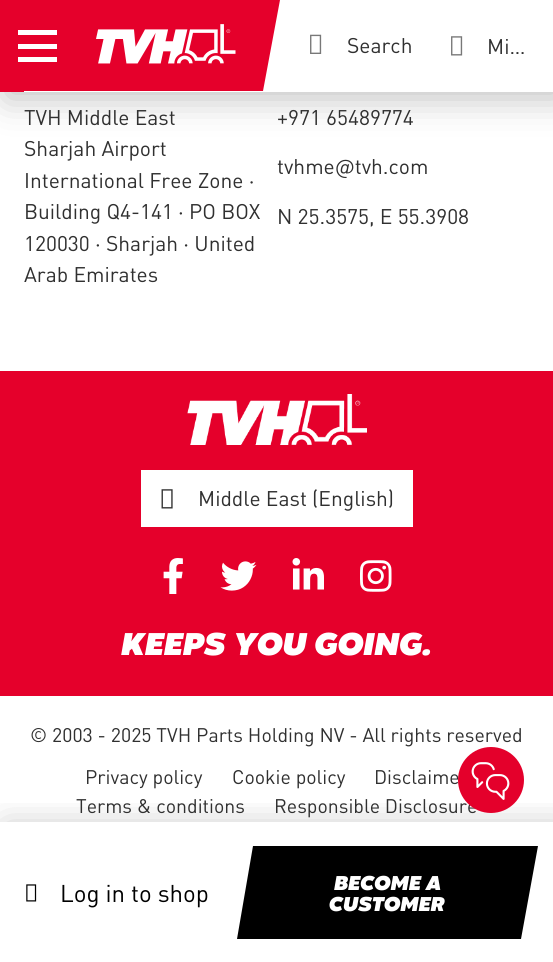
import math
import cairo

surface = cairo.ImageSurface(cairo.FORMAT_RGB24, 553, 962)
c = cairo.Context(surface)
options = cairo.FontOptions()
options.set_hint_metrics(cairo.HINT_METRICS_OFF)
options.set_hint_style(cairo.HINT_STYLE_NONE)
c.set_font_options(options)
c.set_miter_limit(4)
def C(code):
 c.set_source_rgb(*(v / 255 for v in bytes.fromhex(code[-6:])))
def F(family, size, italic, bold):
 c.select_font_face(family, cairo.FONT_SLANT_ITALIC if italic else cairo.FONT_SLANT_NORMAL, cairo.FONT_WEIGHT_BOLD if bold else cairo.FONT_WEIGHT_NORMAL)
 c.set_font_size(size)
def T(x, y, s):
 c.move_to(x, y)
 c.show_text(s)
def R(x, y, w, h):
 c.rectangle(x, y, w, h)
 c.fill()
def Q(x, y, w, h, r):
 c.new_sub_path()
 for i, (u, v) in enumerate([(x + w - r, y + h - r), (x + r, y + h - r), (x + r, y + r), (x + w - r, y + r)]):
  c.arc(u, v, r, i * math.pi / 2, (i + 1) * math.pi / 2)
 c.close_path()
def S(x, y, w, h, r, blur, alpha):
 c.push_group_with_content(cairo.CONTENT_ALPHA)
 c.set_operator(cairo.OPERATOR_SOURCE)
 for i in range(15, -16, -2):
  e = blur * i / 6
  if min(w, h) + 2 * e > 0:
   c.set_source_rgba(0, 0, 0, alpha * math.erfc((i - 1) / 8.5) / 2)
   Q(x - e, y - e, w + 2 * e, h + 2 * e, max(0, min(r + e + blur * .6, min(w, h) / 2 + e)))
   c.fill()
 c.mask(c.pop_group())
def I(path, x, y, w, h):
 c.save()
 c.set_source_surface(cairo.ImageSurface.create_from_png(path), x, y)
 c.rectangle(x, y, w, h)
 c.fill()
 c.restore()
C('ffffff')
c.paint()
C('000000')
S(6,6,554,92,0,18,.25)
C('ffffff')
R(24,0,529,92)
C('e5002b')
R(0,0,24,92)
c.new_path()
c.move_to(20,0)
c.line_to(280,0)
c.line_to(263,91)
c.line_to(4,91)
c.close_path()
c.fill()
I('1.png',96,24,140,40)
C('ffffff')
R(18,44,39,5)
R(18,30,39,5)
R(18,57,39,5)
I('2.png',310,34,12,20)
F('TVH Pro',21,0,0)
C('303030')
T(347,53,'Search')
I('3.png',451,36,12,20)
T(487,54,'Mi…')
c.save()
c.rectangle(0,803,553,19)
c.clip()
C('000000')
S(6,828,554,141,0,18,.25)
c.restore()
I('4.png',26,884,11,18)
F('TVH Pro',24,0,0)
C('000000')
T(60,902,'Log in to shop')
c.new_path()
c.move_to(253,846)
c.line_to(538,846)
c.line_to(521,939)
c.line_to(237,939)
c.close_path()
c.fill()
F('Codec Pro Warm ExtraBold',21,1,0)
C('ffffff')
T(334,890,'BECOME A')
T(329,911,'CUSTOMER')
F('TVH Pro',21,0,0)
C('303030')
T(24,125,'TVH Middle East')
T(24,156,'Sharjah Airport')
T(24,188,'International Free Zone •')
T(24,219,'Building Q4-141 • PO BOX')
T(24,251,'120030 • Sharjah • United')
T(24,282,'Arab Emirates')
T(277,125,'+971 65489774')
T(277,174,'tvhme@tvh.com')
T(277,224,'N 25.3575, E 55.3908')
C('e5002b')
R(0,371,553,325)
I('5.png',187,394,180,51)
C('ffffff')
R(141,470,272,57)
I('6.png',161,489,12,20)
C('303030')
T(198,506,'Middle East (English)')
I('7.png',163,558,20,36)
I('8.png',220,561,37,30)
I('9.png',292,558,32,32)
I('10.png',360,560,32,32)
F('Codec Pro Warm ExtraBold',33,1,0)
C('ffffff')
T(121,655,'KEEPS YOU GOING.')
F('TVH Pro',19.5,0,0)
C('303030')
T(30,742,'© 2003 - 2025 TVH Parts Holding NV - All rights reserved')
T(85,784,'Privacy policy')
T(232,784,'Cookie policy')
T(374,784,'Disclaime')
T(76,813,'Terms & conditions')
T(274,813,'Responsible Disclosure')
C('e4002b')
c.new_path()
c.arc(491,780,33,0,2 * math.pi)
c.fill()
I('11.png',471,762,39,38)
surface.write_to_png('o.png')
